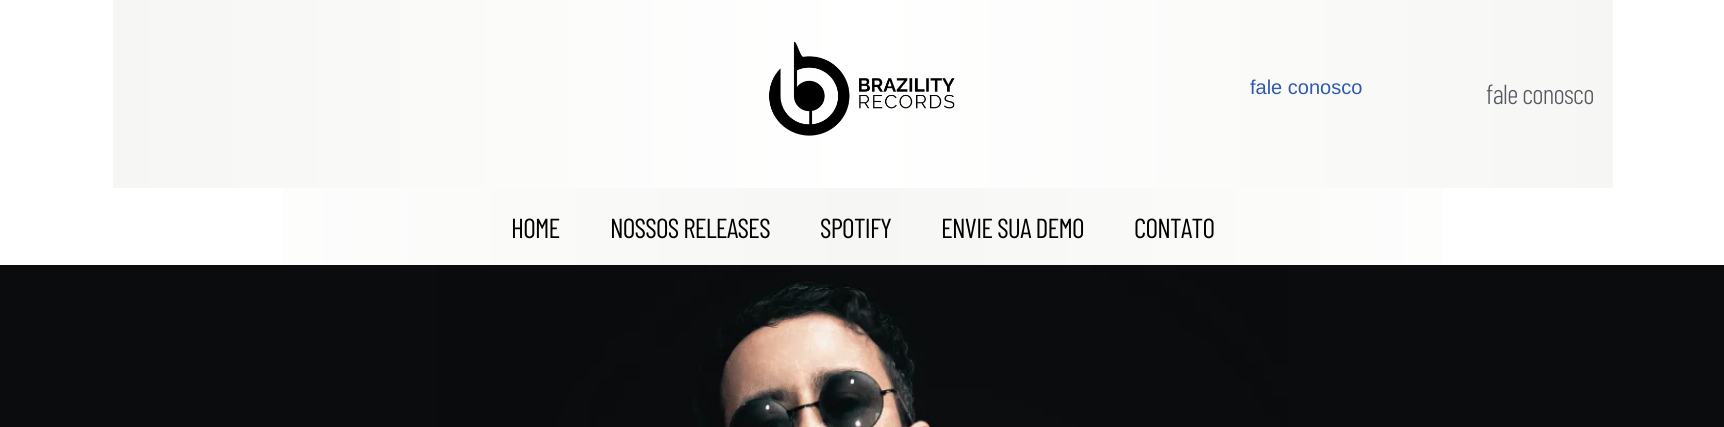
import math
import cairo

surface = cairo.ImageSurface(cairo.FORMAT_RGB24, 1724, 427)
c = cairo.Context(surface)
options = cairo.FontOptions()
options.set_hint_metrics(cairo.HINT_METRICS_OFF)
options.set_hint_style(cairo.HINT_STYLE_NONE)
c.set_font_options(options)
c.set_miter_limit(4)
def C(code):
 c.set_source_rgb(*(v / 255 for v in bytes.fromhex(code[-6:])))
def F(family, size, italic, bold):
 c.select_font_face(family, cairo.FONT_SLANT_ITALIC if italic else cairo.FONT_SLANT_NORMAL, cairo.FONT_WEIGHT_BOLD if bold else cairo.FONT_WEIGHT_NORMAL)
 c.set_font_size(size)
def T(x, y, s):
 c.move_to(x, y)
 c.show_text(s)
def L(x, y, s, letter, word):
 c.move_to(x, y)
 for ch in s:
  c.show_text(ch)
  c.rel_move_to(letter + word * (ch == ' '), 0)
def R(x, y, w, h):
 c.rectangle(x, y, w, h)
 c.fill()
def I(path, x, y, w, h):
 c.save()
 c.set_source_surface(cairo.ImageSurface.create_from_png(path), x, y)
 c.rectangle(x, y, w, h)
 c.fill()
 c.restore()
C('ffffff')
c.paint()
gradient = cairo.LinearGradient(113,94,1613,94)
gradient.add_color_stop_rgba(0,0.965,0.965,0.957,1)
gradient.add_color_stop_rgba(.5,1,1,1,1)
gradient.add_color_stop_rgba(1,0.965,0.965,0.957,1)
c.set_source(gradient)
R(113,0,1500,188)
I('1.png',768,41,187,95)
F('Liberation Sans',20,0,0)
C('2f5aae')
T(1250,94,'fale conosco')
F('Barlow Condensed Light',27.5,0,0)
C('54595f')
L(1486,104,'fale conosco',-.75,0)
gradient = cairo.LinearGradient(113,226,1613,226)
gradient.add_color_stop_rgba(0,1,1,1,1)
gradient.add_color_stop_rgba(.5,0.965,0.965,0.957,1)
gradient.add_color_stop_rgba(1,1,1,1,1)
c.set_source(gradient)
R(283,188,1160,77)
F('Barlow Condensed',27.5,0,0)
C('000000')
L(511,238,'HOME',-.75,0)
L(610,238,'NOSSOS RELEASES',-.75,0)
L(820,238,'SPOTIFY',-.75,0)
L(941,238,'ENVIE SUA DEMO',-.75,0)
L(1134,238,'CONTATO',-.75,0)
I('2.png',0,265,1724,162)
surface.write_to_png('o.png')
